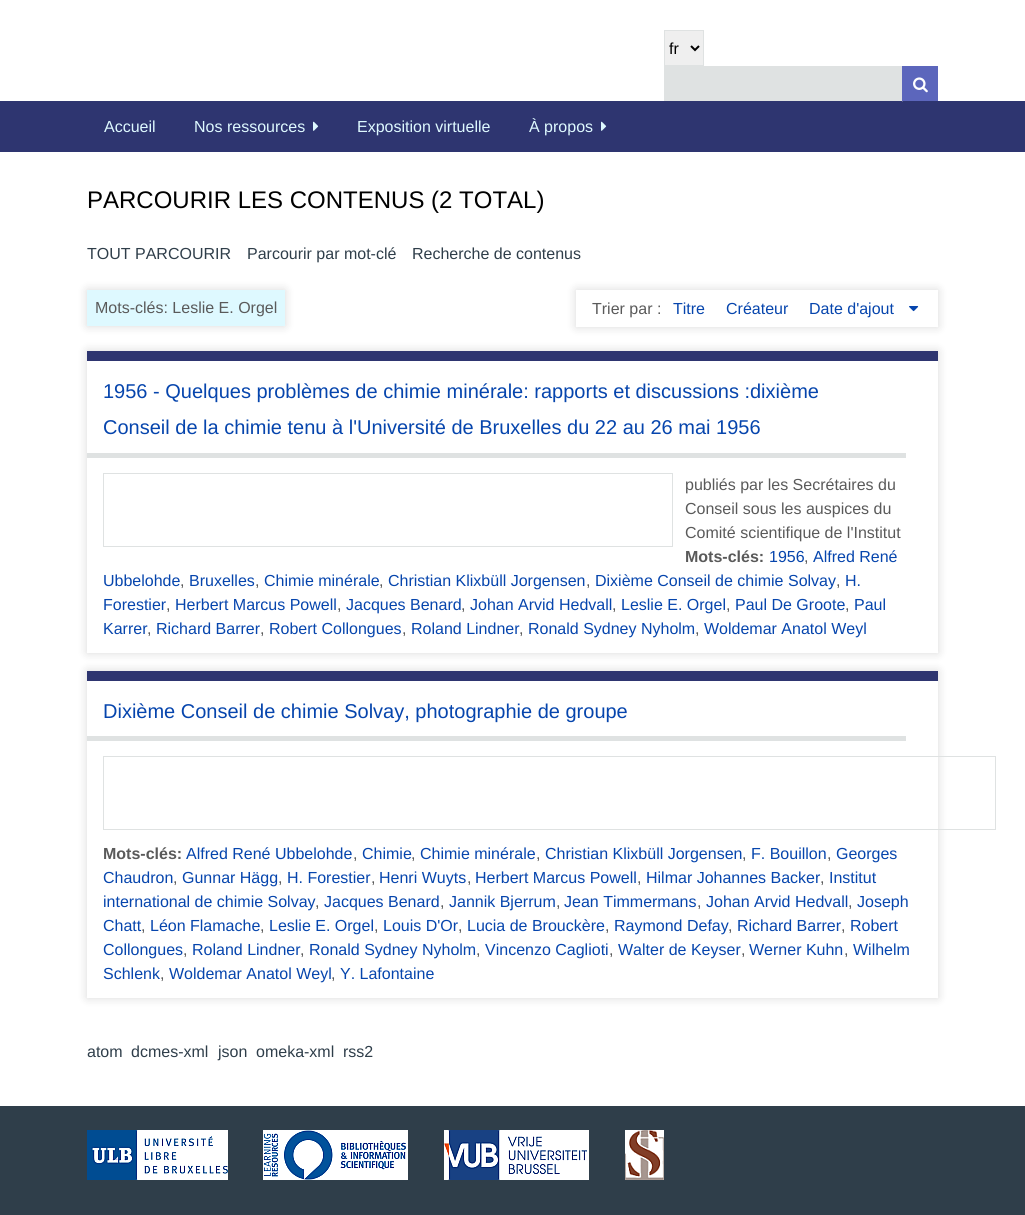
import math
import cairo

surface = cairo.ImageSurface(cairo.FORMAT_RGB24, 1025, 1215)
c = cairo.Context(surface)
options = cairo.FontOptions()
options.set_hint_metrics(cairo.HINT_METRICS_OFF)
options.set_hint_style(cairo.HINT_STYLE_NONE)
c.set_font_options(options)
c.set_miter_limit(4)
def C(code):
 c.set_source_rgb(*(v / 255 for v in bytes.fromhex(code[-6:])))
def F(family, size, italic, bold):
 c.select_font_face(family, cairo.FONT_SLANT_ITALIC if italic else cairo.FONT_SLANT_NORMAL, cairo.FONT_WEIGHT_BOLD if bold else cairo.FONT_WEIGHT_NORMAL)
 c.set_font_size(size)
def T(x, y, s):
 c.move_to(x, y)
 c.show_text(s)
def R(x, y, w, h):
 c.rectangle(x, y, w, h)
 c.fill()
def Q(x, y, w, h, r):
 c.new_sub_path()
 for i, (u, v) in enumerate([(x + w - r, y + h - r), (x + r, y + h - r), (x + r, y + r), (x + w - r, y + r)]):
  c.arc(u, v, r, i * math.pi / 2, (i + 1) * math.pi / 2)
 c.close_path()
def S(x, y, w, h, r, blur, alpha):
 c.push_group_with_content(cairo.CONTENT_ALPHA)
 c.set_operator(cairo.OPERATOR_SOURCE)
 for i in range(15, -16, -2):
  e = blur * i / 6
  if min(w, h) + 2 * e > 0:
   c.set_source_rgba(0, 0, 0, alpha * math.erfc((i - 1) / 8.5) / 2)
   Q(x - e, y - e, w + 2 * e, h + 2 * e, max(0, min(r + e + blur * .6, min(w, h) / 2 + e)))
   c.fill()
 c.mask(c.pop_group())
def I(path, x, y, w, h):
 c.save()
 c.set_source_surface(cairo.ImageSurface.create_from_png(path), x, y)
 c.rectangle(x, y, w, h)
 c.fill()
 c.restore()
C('2f3e4a')
c.paint()
C('ffffff')
R(0,0,1025,101)
C('efefef')
c.rectangle(664.5,30.5,39,35)
c.fill_preserve()
C('dfe2e2')
c.set_line_width(1)
c.stroke()
c.new_path()
c.move_to(691,46)
c.line_to(695,50)
c.line_to(699,46)
C('000000')
c.set_line_width(2)
c.stroke()
F('Liberation Sans',16,0,0)
T(669,54,'fr')
C('dfe2e2')
R(664,66,238,35)
C('5c66bc')
R(902,66,36,35)
I('1.png',913,77,15,16)
C('2e3570')
R(0,101,1025,51)
C('585d8d')
R(902,101,1,1)
C('def9ff')
T(104,132,'Accueil')
T(194,132,'Nos ressources')
I('2.png',313,121,6,10)
T(357,132,'Exposition virtuelle')
T(529,132,'À propos')
I('2.png',601,121,6,10)
C('ffffff')
R(0,152,1025,954)
F('Liberation Sans',24,0,0)
C('000000')
T(87,208,'PARCOURIR LES CONTENUS (2 TOTAL)')
F('Liberation Sans',16,0,0)
C('2f3e4a')
T(87,259,'TOUT PARCOURIR')
T(247,259,'Parcourir par mot-clé')
T(412,259,'Recherche de contenus')
C('000000')
S(87,290,198,36,0,5,.15)
C('def9ff')
R(87,290,198,36)
C('5a5a5a')
T(95,313,'Mots-clés: Leslie E. Orgel')
c.save()
c.set_fill_rule(cairo.FILL_RULE_EVEN_ODD)
c.new_path()
c.move_to(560,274)
c.line_to(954,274)
c.line_to(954,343)
c.line_to(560,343)
c.close_path()
c.move_to(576,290)
c.line_to(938,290)
c.line_to(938,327)
c.line_to(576,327)
c.close_path()
c.clip()
C('000000')
S(576,290,362,37,0,5,.15)
c.restore()
T(592,314,'Trier par :')
C('0645ad')
T(673,314,'Titre')
T(726,314,'Créateur')
T(809,314,'Date d\'ajout')
I('3.png',909,306,10,6)
c.save()
c.set_fill_rule(cairo.FILL_RULE_EVEN_ODD)
c.new_path()
c.move_to(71,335)
c.line_to(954,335)
c.line_to(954,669)
c.line_to(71,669)
c.close_path()
c.move_to(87,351)
c.line_to(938,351)
c.line_to(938,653)
c.line_to(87,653)
c.close_path()
c.clip()
C('000000')
S(87,351,851,302,0,5,.15)
c.restore()
C('2e3570')
R(87,351,851,10)
C('dfe2e2')
R(87,453,819,5)
F('Liberation Sans',20,0,0)
C('0645ad')
T(103,398,'1956 - Quelques problèmes de chimie minérale: rapports et discussions :dixième')
T(103,434,'Conseil de la chimie tenu à l\'Université de Bruxelles du 22 au 26 mai 1956')
c.rectangle(103.5,473.5,569,73)
C('dfe2e2')
c.set_line_width(1)
c.stroke()
F('Liberation Sans',16,0,0)
C('5a5a5a')
T(685,490,'publiés par les Secrétaires du')
T(685,514,'Conseil sous les auspices du')
T(685,538,'Comité scientifique de l\'Institut')
F('Liberation Sans',16,0,1)
T(685,562,'Mots-clés:')
F('Liberation Sans',16,0,0)
C('0645ad')
T(769,562,'1956')
C('5a5a5a')
T(804,562,',')
C('0645ad')
T(813,562,'Alfred René')
T(103,586,'Ubbelohde')
T(189,586,'Bruxelles')
T(264,586,'Chimie minérale')
T(388,586,'Christian Klixbüll Jorgensen')
T(595,586,'Dixième Conseil de chimie Solvay')
T(845,586,'H.')
C('5a5a5a')
T(180,586,',')
T(255,586,',')
T(379,586,',')
T(586,586,',')
T(836,586,',')
C('0645ad')
T(103,610,'Forestier')
C('5a5a5a')
T(166,610,',')
C('0645ad')
T(175,610,'Herbert Marcus Powell')
C('5a5a5a')
T(337,610,',')
C('0645ad')
T(346,610,'Jacques Benard')
C('5a5a5a')
T(461,610,',')
C('0645ad')
T(470,610,'Johan Arvid Hedvall')
C('5a5a5a')
T(612,610,',')
C('0645ad')
T(621,610,'Leslie E. Orgel')
C('5a5a5a')
T(726,610,',')
C('0645ad')
T(735,610,'Paul De Groote')
C('5a5a5a')
T(845,610,',')
C('0645ad')
T(854,610,'Paul')
T(103,634,'Karrer')
C('5a5a5a')
T(147,634,',')
C('0645ad')
T(156,634,'Richard Barrer')
C('5a5a5a')
T(260,634,',')
C('0645ad')
T(269,634,'Robert Collongues')
C('5a5a5a')
T(402,634,',')
C('0645ad')
T(411,634,'Roland Lindner')
C('5a5a5a')
T(519,634,',')
C('0645ad')
T(528,634,'Ronald Sydney Nyholm')
C('5a5a5a')
T(695,634,',')
C('0645ad')
T(704,634,'Woldemar Anatol Weyl')
c.save()
c.set_fill_rule(cairo.FILL_RULE_EVEN_ODD)
c.new_path()
c.move_to(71,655)
c.line_to(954,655)
c.line_to(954,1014)
c.line_to(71,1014)
c.close_path()
c.move_to(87,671)
c.line_to(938,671)
c.line_to(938,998)
c.line_to(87,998)
c.close_path()
c.clip()
C('000000')
S(87,671,851,327,0,5,.15)
c.restore()
C('2e3570')
R(87,671,851,10)
C('dfe2e2')
R(87,736,819,5)
F('Liberation Sans',20,0,0)
C('0645ad')
T(103,718,'Dixième Conseil de chimie Solvay, photographie de groupe')
c.rectangle(103.5,756.5,892,73)
C('dfe2e2')
c.stroke()
F('Liberation Sans',16,0,1)
C('5a5a5a')
T(103,859,'Mots-clés:')
F('Liberation Sans',16,0,0)
C('0645ad')
T(186,859,'Alfred René Ubbelohde')
C('5a5a5a')
T(353,859,',')
C('0645ad')
T(362,859,'Chimie')
C('5a5a5a')
T(411,859,',')
C('0645ad')
T(420,859,'Chimie minérale')
C('5a5a5a')
T(536,859,',')
C('0645ad')
T(545,859,'Christian Klixbüll Jorgensen')
C('5a5a5a')
T(742,859,',')
C('0645ad')
T(751,859,'F. Bouillon')
C('5a5a5a')
T(827,859,',')
C('0645ad')
T(836,859,'Georges')
T(103,883,'Chaudron')
C('5a5a5a')
T(173,883,',')
C('0645ad')
T(182,883,'Gunnar Hägg')
C('5a5a5a')
T(278,883,',')
C('0645ad')
T(287,883,'H. Forestier')
C('5a5a5a')
T(371,883,',')
C('0645ad')
T(379,883,'Henri Wuyts')
C('5a5a5a')
T(467,883,',')
C('0645ad')
T(475,883,'Herbert Marcus Powell')
C('5a5a5a')
T(637,883,',')
C('0645ad')
T(646,883,'Hilmar Johannes Backer')
C('5a5a5a')
T(820,883,',')
C('0645ad')
T(829,883,'Institut')
T(103,907,'international de chimie Solvay')
C('5a5a5a')
T(315,907,',')
C('0645ad')
T(324,907,'Jacques Benard')
C('5a5a5a')
T(440,907,',')
C('0645ad')
T(449,907,'Jannik Bjerrum')
C('5a5a5a')
T(556,907,',')
C('0645ad')
T(564,907,'Jean Timmermans')
C('5a5a5a')
T(697,907,',')
C('0645ad')
T(706,907,'Johan Arvid Hedvall')
C('5a5a5a')
T(848,907,',')
C('0645ad')
T(857,907,'Joseph')
T(103,931,'Chatt')
C('5a5a5a')
T(141,931,',')
C('0645ad')
T(150,931,'Léon Flamache')
C('5a5a5a')
T(260,931,',')
C('0645ad')
T(269,931,'Leslie E. Orgel')
C('5a5a5a')
T(374,931,',')
C('0645ad')
T(383,931,'Louis D\'Or')
C('5a5a5a')
T(458,931,',')
C('0645ad')
T(467,931,'Lucia de Brouckère')
C('5a5a5a')
T(605,931,',')
C('0645ad')
T(614,931,'Raymond Defay')
C('5a5a5a')
T(728,931,',')
C('0645ad')
T(737,931,'Richard Barrer')
C('5a5a5a')
T(841,931,',')
C('0645ad')
T(850,931,'Robert')
T(103,955,'Collongues')
C('5a5a5a')
T(183,955,',')
C('0645ad')
T(192,955,'Roland Lindner')
C('5a5a5a')
T(300,955,',')
C('0645ad')
T(309,955,'Ronald Sydney Nyholm')
C('5a5a5a')
T(476,955,',')
C('0645ad')
T(485,955,'Vincenzo Caglioti')
C('5a5a5a')
T(609,955,',')
C('0645ad')
T(618,955,'Walter de Keyser')
C('5a5a5a')
T(741,955,',')
C('0645ad')
T(749,955,'Werner Kuhn')
C('5a5a5a')
T(844,955,',')
C('0645ad')
T(853,955,'Wilhelm')
T(103,979,'Schlenk')
C('5a5a5a')
T(160,979,',')
C('0645ad')
T(169,979,'Woldemar Anatol Weyl')
C('5a5a5a')
T(331,979,',')
C('0645ad')
T(340,979,'Y. Lafontaine')
C('2f3e4a')
T(87,1057,'atom')
T(131,1057,'dcmes-xml')
T(218,1057,'json')
T(256,1057,'omeka-xml')
T(343,1057,'rss2')
I('4.png',87,1130,141,50)
I('5.png',263,1130,145,50)
I('6.png',444,1130,145,50)
I('7.png',625,1130,39,50)
surface.write_to_png('o.png')
